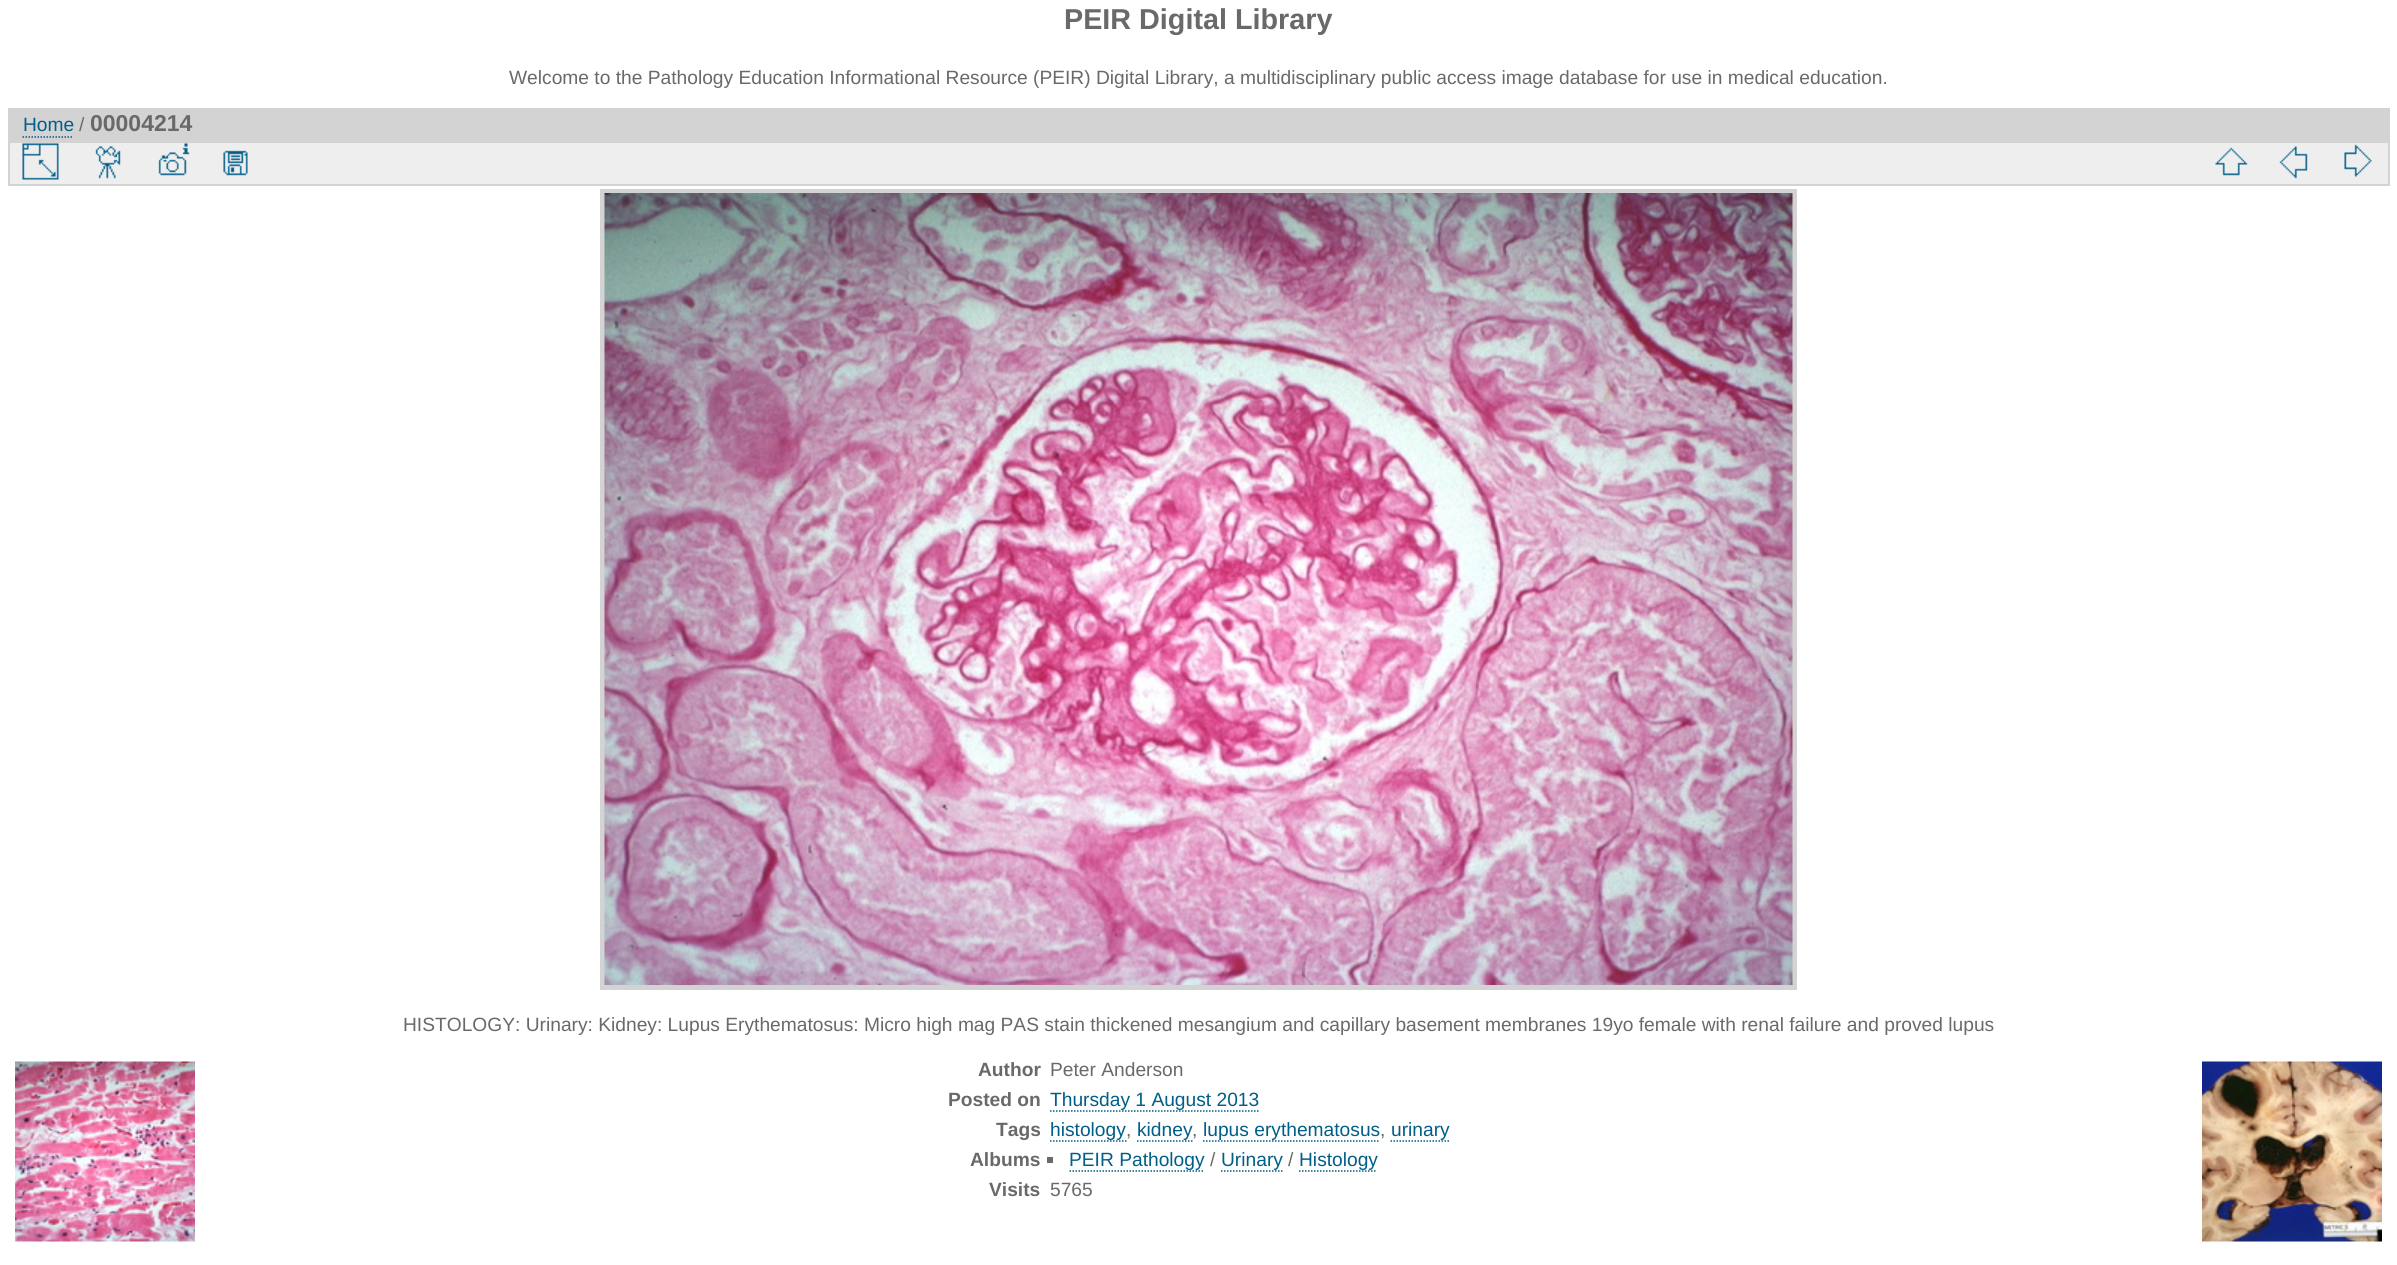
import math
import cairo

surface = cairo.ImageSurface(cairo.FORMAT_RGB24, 2397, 1265)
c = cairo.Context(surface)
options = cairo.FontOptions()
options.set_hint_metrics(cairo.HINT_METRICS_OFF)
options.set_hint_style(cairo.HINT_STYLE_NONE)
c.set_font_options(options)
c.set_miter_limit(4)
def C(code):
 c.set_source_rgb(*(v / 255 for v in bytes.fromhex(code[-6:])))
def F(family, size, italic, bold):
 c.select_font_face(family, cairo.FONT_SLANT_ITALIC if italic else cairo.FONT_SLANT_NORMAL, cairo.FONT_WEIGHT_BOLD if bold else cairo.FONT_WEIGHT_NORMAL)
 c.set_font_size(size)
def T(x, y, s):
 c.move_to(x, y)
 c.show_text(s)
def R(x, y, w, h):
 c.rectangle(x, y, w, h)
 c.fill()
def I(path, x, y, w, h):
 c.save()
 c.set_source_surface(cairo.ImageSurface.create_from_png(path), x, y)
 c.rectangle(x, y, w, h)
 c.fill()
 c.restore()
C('ffffff')
c.paint()
F('Liberation Sans',28.75,0,1)
C('696969')
T(1064,29,'PEIR Digital Library')
F('Liberation Sans',19.2,0,0)
T(509,84,'Welcome to the Pathology Education Informational Resource (PEIR) Digital Library, a multidisciplinary public access image database for use in medical education.')
C('d3d3d3')
R(8,108,2382,33)
C('005e89')
T(23,131,'Home')
c.new_path()
c.move_to(22.5,137)
c.line_to(73.5,137)
c.set_line_width(1.5)
c.set_dash([1.5,1.5])
c.stroke()
C('696969')
T(79,131,'/')
F('Liberation Sans',23,0,1)
T(90,131,'00004214')
C('eeeeee')
c.rectangle(9,142,2380,43)
c.fill_preserve()
C('d3d3d3')
c.set_line_width(2)
c.set_dash([])
c.stroke()
I('1.png',22,143,37,37)
I('2.png',95,146,26,33)
I('3.png',158,143,32,33)
I('4.png',223,150,25,26)
I('5.png',2215,147,33,29)
I('6.png',2279,146,29,33)
I('7.png',2344,144,28,33)
c.rectangle(602.5,191.5,1192,796)
c.set_line_width(5)
c.stroke()
I('8.png',604,193,1189,792)
F('Liberation Sans',19.2,0,0)
C('696969')
T(403,1031,'HISTOLOGY: Urinary: Kidney: Lupus Erythematosus: Micro high mag PAS stain thickened mesangium and capillary basement membranes 19yo female with renal failure and proved lupus')
I('9.png',15,1061,180,181)
I('10.png',2202,1061,180,181)
F('Liberation Sans',19.2,0,1)
T(978,1076,'Author')
F('Liberation Sans',19.2,0,0)
T(1050,1076,'Peter Anderson')
F('Liberation Sans',19.2,0,1)
T(948,1106,'Posted on')
F('Liberation Sans',19.2,0,0)
C('005e89')
T(1050,1106,'Thursday 1 August 2013')
c.new_path()
c.move_to(1050,1111)
c.line_to(1260,1111)
c.set_line_width(1.5)
c.set_dash([1.5,1.5])
c.stroke()
F('Liberation Sans',19.2,0,1)
C('696969')
T(996,1136,'Tags')
F('Liberation Sans',19.2,0,0)
C('005e89')
T(1050,1136,'histology')
c.new_path()
c.move_to(1050,1141)
c.line_to(1126.5,1141)
c.stroke()
C('696969')
T(1126,1136,',')
C('005e89')
T(1137,1136,'kidney')
c.new_path()
c.move_to(1137,1141)
c.line_to(1192.5,1141)
c.stroke()
C('696969')
T(1192,1136,',')
C('005e89')
T(1203,1136,'lupus erythematosus')
c.new_path()
c.move_to(1203,1141)
c.line_to(1380,1141)
c.stroke()
C('696969')
T(1380,1136,',')
C('005e89')
T(1391,1136,'urinary')
c.new_path()
c.move_to(1390.5,1141)
c.line_to(1449,1141)
c.stroke()
F('Liberation Sans',19.2,0,1)
C('696969')
T(970,1166,'Albums')
R(1047,1157,6,6)
F('Liberation Sans',19.2,0,0)
C('005e89')
T(1069,1166,'PEIR Pathology')
c.new_path()
c.move_to(1069.5,1171)
c.line_to(1204.5,1171)
c.stroke()
C('696969')
T(1210,1166,'/')
C('005e89')
T(1221,1166,'Urinary')
c.new_path()
c.move_to(1221,1171)
c.line_to(1282.5,1171)
c.stroke()
C('696969')
T(1288,1166,'/')
C('005e89')
T(1299,1166,'Histology')
c.new_path()
c.move_to(1299,1171)
c.line_to(1377,1171)
c.stroke()
F('Liberation Sans',19.2,0,1)
C('696969')
T(989,1196,'Visits')
F('Liberation Sans',19.2,0,0)
T(1050,1196,'5765')
surface.write_to_png('o.png')
